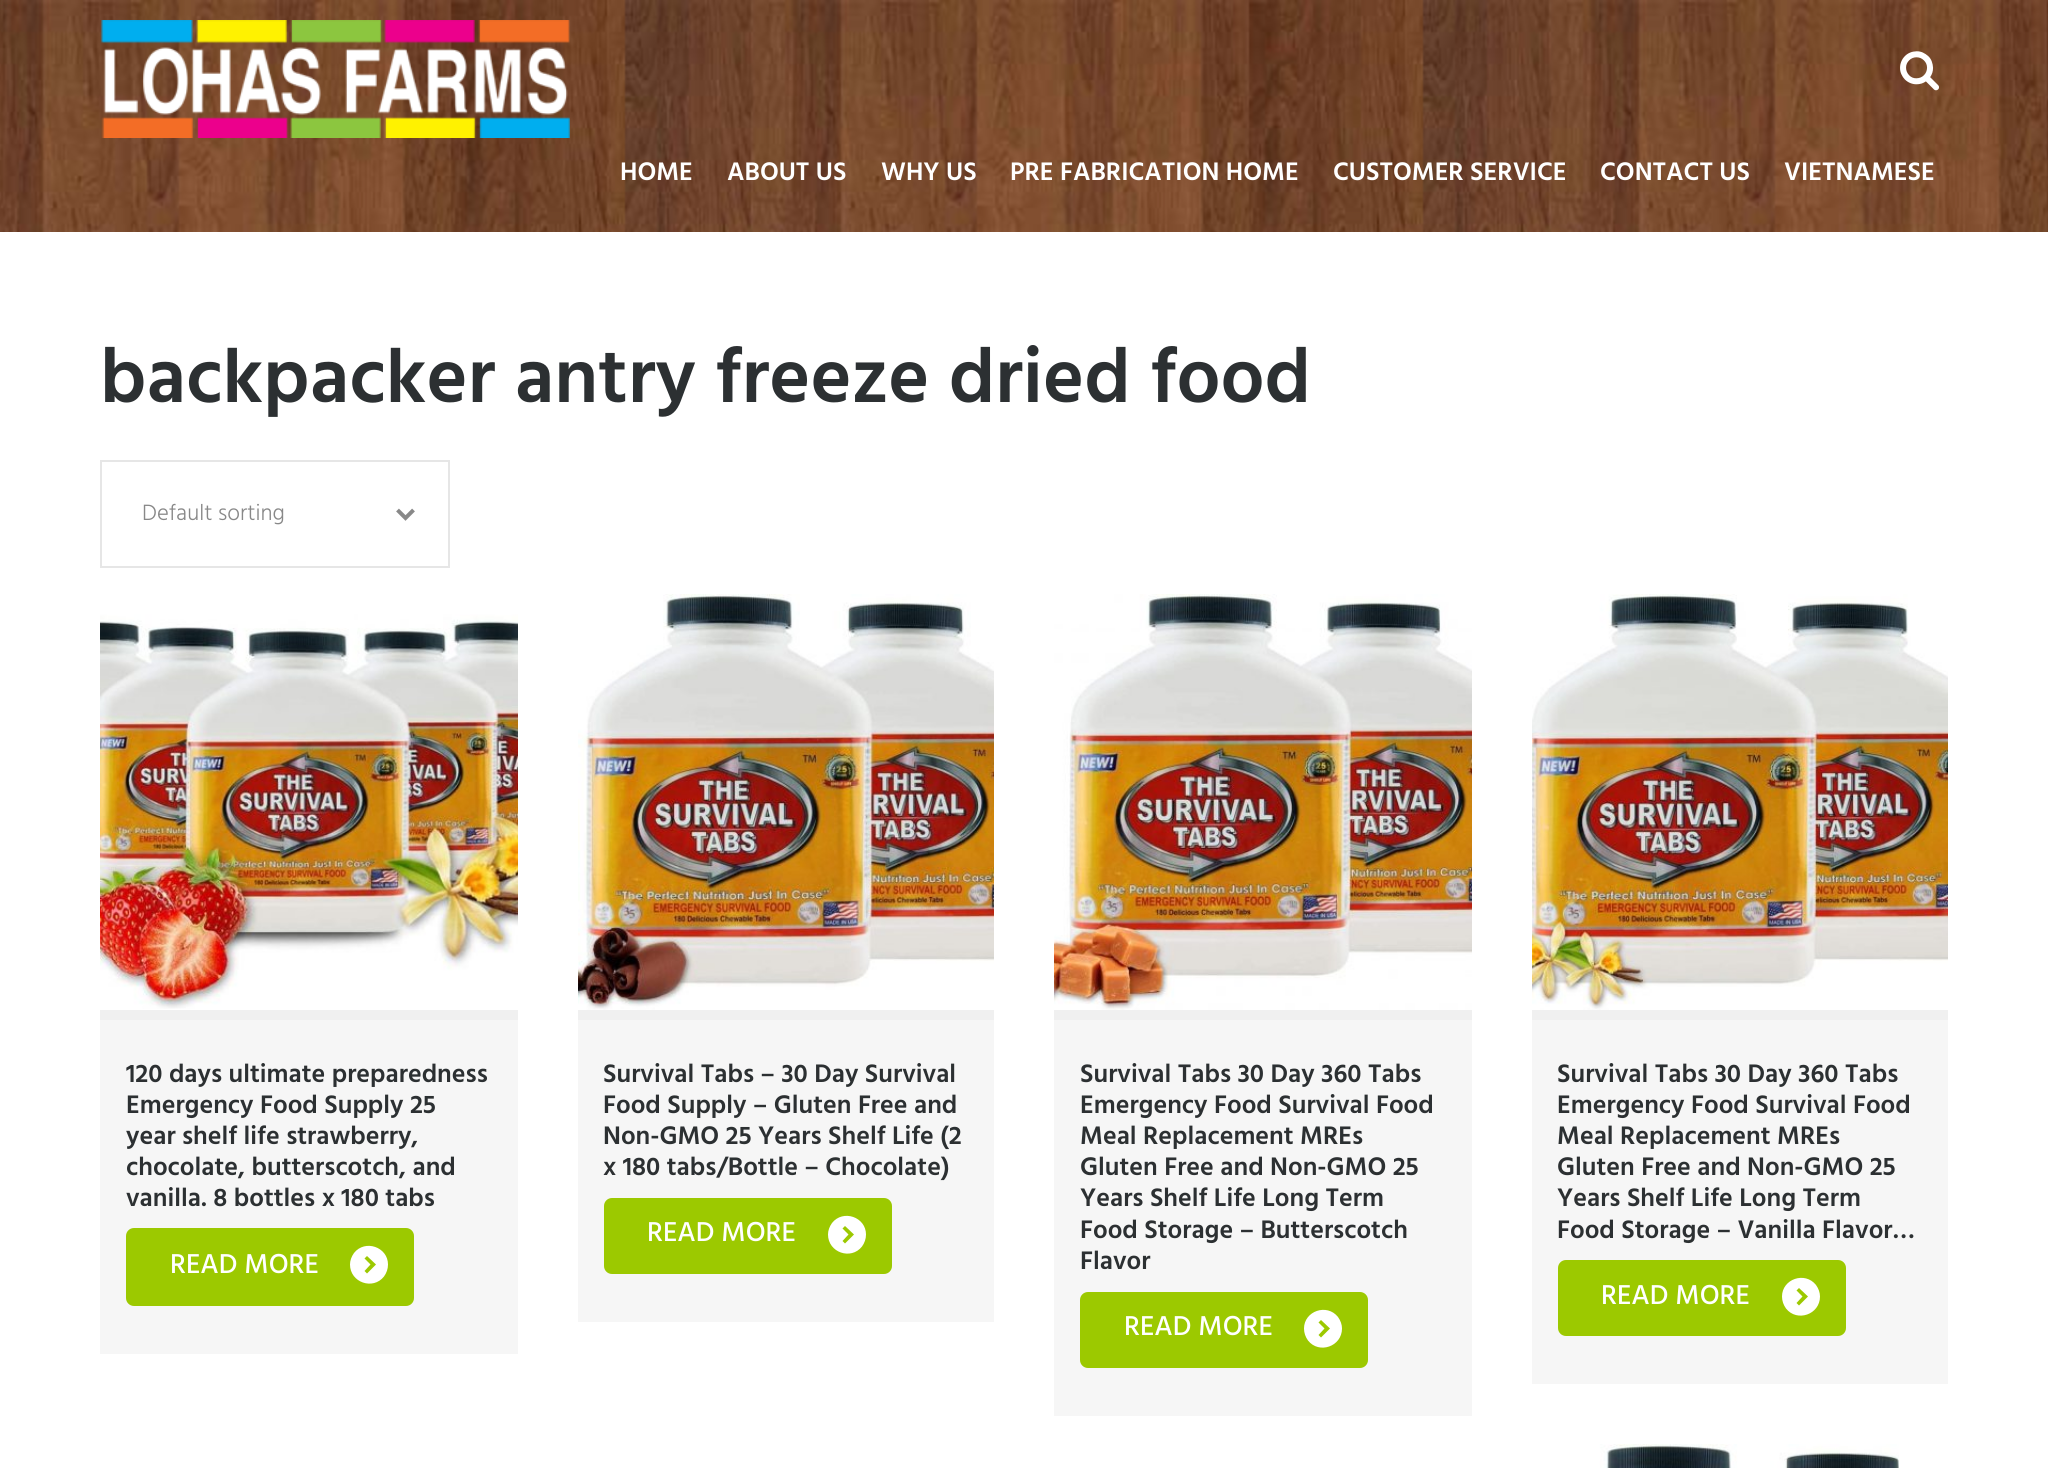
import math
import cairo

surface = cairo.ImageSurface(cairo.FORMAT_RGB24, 2048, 1468)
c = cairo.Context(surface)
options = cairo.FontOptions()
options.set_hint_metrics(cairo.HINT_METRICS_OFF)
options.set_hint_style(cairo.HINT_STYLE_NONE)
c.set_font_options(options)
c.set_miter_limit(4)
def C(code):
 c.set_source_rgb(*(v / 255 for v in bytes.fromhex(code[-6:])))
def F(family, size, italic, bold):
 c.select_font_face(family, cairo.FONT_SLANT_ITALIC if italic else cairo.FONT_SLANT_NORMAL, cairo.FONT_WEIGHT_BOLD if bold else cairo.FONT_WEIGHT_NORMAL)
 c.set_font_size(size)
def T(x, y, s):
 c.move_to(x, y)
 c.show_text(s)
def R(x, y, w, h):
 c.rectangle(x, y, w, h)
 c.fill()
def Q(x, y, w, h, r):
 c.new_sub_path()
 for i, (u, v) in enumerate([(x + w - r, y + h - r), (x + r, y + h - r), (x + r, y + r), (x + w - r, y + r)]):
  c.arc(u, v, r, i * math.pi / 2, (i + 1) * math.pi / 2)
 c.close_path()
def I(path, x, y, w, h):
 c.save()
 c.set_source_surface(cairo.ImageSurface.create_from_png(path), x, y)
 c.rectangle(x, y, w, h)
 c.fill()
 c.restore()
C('ffffff')
c.paint()
I('1.png',0,0,2048,232)
I('2.png',101,20,469,118)
I('3.png',1900,51,39,40)
F('Hind SemiBold',26,0,0)
C('ffffff')
T(620,180,'HOME')
T(727,180,'ABOUT US')
T(881,180,'WHY US')
T(1010,180,'PRE FABRICATION HOME')
T(1333,180,'CUSTOMER SERVICE')
T(1600,180,'CONTACT US')
T(1784,180,'VIETNAMESE')
F('Hind SemiBold',78,0,0)
C('2c3032')
T(100,402,'backpacker antry freeze dried food')
c.rectangle(101,461,348,106)
C('e6e6e6')
c.stroke()
c.new_path()
c.move_to(397.5,510)
c.line_to(405.5,518)
c.line_to(413.5,510)
C('888888')
c.set_line_width(4)
c.stroke()
F('Hind Light',22.75,0,0)
T(142,520,'Default sorting')
C('f0f0f0')
R(100,1010,418,10)
I('4.png',100,614,418,395)
C('f6f6f6')
R(100,1020,418,334)
F('Hind SemiBold',26,0,0)
C('2c3032')
T(126,1082,'120 days ultimate preparedness')
T(126,1113,'Emergency Food Supply 25')
T(126,1144,'year shelf life strawberry,')
T(126,1175,'chocolate, butterscotch, and')
T(126,1206,'vanilla. 8 bottles x 180 tabs')
C('9cc900')
Q(126,1228,288,78,8)
c.fill()
F('Hind Medium',28,0,0)
C('ffffff')
T(170,1273,'READ MORE')
c.new_path()
c.move_to(388,1264.5)
c.curve_to(388,1269,386.5,1273,384,1276.5)
c.curve_to(373,1290.5,350,1282.5,350,1264.5)
c.curve_to(350,1260.5,351.5,1256.5,354,1253)
c.curve_to(365,1239,388,1247,388,1264.5)
c.close_path()
c.move_to(367,1273.5)
c.line_to(376,1264.5)
c.line_to(367,1256)
c.line_to(364.5,1258.5)
c.line_to(370.5,1264.5)
c.line_to(364.5,1271)
c.close_path()
c.fill()
C('f0f0f0')
R(578,1010,416,10)
I('5.png',578,594,416,416)
C('f6f6f6')
R(578,1020,416,302)
F('Hind SemiBold',26,0,0)
C('2c3032')
T(603,1082,'Survival Tabs – 30 Day Survival')
T(603,1113,'Food Supply – Gluten Free and')
T(603,1144,'Non-GMO 25 Years Shelf Life (2')
T(603,1175,'x 180 tabs/Bottle – Chocolate)')
C('9cc900')
Q(604,1198,288,76,8)
c.fill()
F('Hind Medium',28,0,0)
C('ffffff')
T(647,1241,'READ MORE')
c.new_path()
c.move_to(866,1234.5)
c.curve_to(866,1239,864.5,1243,862,1246.5)
c.curve_to(851,1260.5,828,1252.5,828,1234.5)
c.curve_to(828,1230.5,829.5,1226.5,832,1223)
c.curve_to(843,1209,866,1217,866,1234.5)
c.close_path()
c.move_to(845,1243.5)
c.line_to(854,1234.5)
c.line_to(845,1226)
c.line_to(842.5,1228.5)
c.line_to(848.5,1234.5)
c.line_to(842.5,1241)
c.close_path()
c.fill()
C('f0f0f0')
R(1054,1010,418,10)
I('6.png',1054,594,418,416)
C('f6f6f6')
R(1054,1020,418,396)
F('Hind SemiBold',26,0,0)
C('2c3032')
T(1080,1082,'Survival Tabs 30 Day 360 Tabs')
T(1080,1113,'Emergency Food Survival Food')
T(1080,1144,'Meal Replacement MREs')
T(1080,1175,'Gluten Free and Non-GMO 25')
T(1080,1206,'Years Shelf Life Long Term')
T(1080,1238,'Food Storage – Butterscotch')
T(1080,1269,'Flavor')
C('9cc900')
Q(1080,1292,288,76,8)
c.fill()
F('Hind Medium',28,0,0)
C('ffffff')
T(1124,1335,'READ MORE')
c.new_path()
c.move_to(1342,1328.5)
c.curve_to(1342,1346.5,1319,1354.5,1308,1340.5)
c.curve_to(1305.5,1337,1304,1333,1304,1328.5)
c.curve_to(1304,1311,1327,1303,1338,1317)
c.curve_to(1340.5,1320.5,1342,1324.5,1342,1328.5)
c.close_path()
c.move_to(1321,1337.5)
c.line_to(1330,1328.5)
c.line_to(1321,1320)
c.line_to(1318.5,1322.5)
c.line_to(1324.5,1328.5)
c.line_to(1318.5,1335)
c.close_path()
c.fill()
C('f0f0f0')
R(1532,1010,416,10)
I('7.png',1532,594,416,416)
C('f6f6f6')
R(1532,1020,416,364)
F('Hind SemiBold',26,0,0)
C('2c3032')
T(1557,1082,'Survival Tabs 30 Day 360 Tabs')
T(1557,1113,'Emergency Food Survival Food')
T(1557,1144,'Meal Replacement MREs')
T(1557,1175,'Gluten Free and Non-GMO 25')
T(1557,1206,'Years Shelf Life Long Term')
T(1557,1238,'Food Storage – Vanilla Flavor…')
C('9cc900')
Q(1558,1260,288,76,8)
c.fill()
F('Hind Medium',28,0,0)
C('ffffff')
T(1601,1304,'READ MORE')
c.new_path()
c.move_to(1820,1296.5)
c.curve_to(1820,1314.5,1797,1322.5,1786,1308.5)
c.curve_to(1783.5,1305,1782,1301,1782,1296.5)
c.curve_to(1782,1279,1805,1271,1816,1285)
c.curve_to(1818.5,1288.5,1820,1292.5,1820,1296.5)
c.close_path()
c.move_to(1799,1305.5)
c.line_to(1808,1296.5)
c.line_to(1799,1288)
c.line_to(1796.5,1290.5)
c.line_to(1802.5,1296.5)
c.line_to(1796.5,1303)
c.close_path()
c.fill()
I('8.png',1535,1444,364,24)
surface.write_to_png('o.png')
